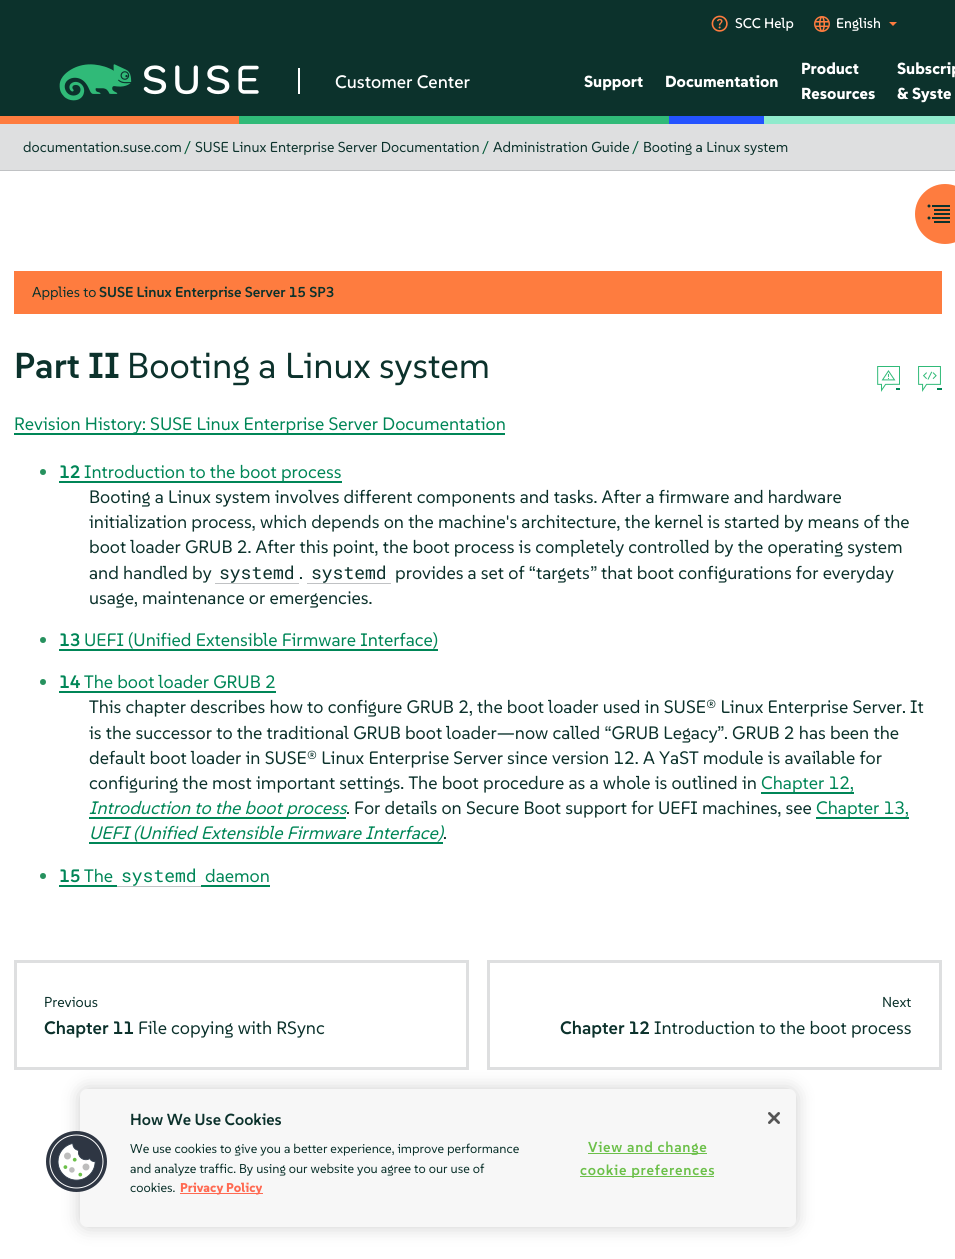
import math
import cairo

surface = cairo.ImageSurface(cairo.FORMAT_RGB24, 955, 1259)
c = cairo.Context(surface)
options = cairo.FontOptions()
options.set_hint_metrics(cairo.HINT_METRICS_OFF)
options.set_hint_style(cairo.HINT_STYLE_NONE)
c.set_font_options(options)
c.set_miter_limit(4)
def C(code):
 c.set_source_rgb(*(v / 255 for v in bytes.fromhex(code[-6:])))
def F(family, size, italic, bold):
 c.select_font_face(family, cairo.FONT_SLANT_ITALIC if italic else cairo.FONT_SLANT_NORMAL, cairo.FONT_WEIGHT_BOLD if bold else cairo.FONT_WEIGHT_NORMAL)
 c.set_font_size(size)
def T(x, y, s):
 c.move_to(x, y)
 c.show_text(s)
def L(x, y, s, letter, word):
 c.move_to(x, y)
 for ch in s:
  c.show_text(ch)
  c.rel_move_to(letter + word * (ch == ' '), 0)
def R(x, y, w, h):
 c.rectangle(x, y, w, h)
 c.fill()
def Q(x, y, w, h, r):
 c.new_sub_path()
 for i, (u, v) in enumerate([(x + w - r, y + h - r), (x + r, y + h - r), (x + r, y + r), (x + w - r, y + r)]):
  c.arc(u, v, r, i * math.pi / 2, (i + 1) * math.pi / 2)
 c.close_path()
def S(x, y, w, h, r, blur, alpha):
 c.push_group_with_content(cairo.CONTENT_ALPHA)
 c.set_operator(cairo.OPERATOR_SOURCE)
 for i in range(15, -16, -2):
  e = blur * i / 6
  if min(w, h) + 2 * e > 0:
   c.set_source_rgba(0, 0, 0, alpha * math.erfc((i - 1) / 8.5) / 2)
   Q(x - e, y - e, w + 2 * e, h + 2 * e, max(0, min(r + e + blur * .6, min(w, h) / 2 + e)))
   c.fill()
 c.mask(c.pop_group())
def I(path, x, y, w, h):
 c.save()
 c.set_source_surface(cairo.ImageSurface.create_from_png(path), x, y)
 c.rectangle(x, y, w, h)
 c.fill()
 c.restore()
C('ffffff')
c.paint()
C('0c322c')
R(0,0,955,116)
I('1.png',711,15,17,17)
F('SUSE Medium',14,0,0)
C('ffffff')
T(735,28,'SCC Help')
I('2.png',814,16,16,16)
T(836,28,'English')
C('fe7c3f')
c.new_path()
c.move_to(893,26)
c.line_to(889,22)
c.line_to(897,22)
c.close_path()
c.fill()
I('3.png',59,64,200,37)
C('ffffff')
R(298,68,2,26)
F('SUSE Medium',18,0,0)
T(335,88,'Customer Center')
F('SUSE ExtraBold',16,0,0)
T(584,87,'Support')
T(665,87,'Documentation')
T(801,74,'Product')
T(801,99,'Resources')
T(897,74,'Subscrip')
T(897,99,'& Syste')
C('fe7c3f')
R(0,116,239,8)
C('30ba78')
R(239,116,430,8)
C('2453ff')
R(669,116,95,8)
C('90ebcd')
R(764,116,191,8)
C('dedfe0')
R(0,124,955,46)
C('c0c2c4')
R(0,170,955,1)
F('SUSE',14.4,0,0)
C('0c322c')
T(23,152,'documentation.suse.com')
C('025937')
T(184,152,'/')
C('0c322c')
T(195,152,'SUSE Linux Enterprise Server Documentation')
C('025937')
T(482,152,'/')
C('0c322c')
T(493,152,'Administration Guide')
C('025937')
T(632,152,'/')
C('0c322c')
T(643,152,'Booting a Linux system')
C('fe7c3f')
c.new_path()
c.arc(945,214,30,0,2 * math.pi)
c.fill()
I('4.png',927,204,23,19)
R(14,271,928,43)
C('0c322c')
T(32,297,'Applies to')
F('SUSE SemiBold',14.4,0,0)
T(99,297,'SUSE Linux Enterprise Server 15 SP3')
F('SUSE SemiBold',36,0,0)
T(14,378,'Part II')
F('SUSE',36,0,0)
T(127,378,'Booting a Linux system')
I('5.png',877,366,23,26)
C('008657')
R(896,388,4,2)
I('6.png',918,366,23,26)
R(937,388,5,2)
R(14,433,491,2)
F('SUSE',18,0,0)
T(14,430,'Revision History: SUSE Linux Enterprise Server Documentation')
C('26915e')
c.new_path()
c.arc(43,472,3,0,2 * math.pi)
c.fill()
F('SUSE SemiBold',18,0,0)
C('008657')
T(59,478,'12')
R(59,481,283,2)
F('SUSE',18,0,0)
T(84,478,'Introduction to the boot process')
C('0c322c')
T(89,503,'Booting a Linux system involves different components and tasks. After a firmware and hardware')
T(89,528,'initialization process, which depends on the machine\'s architecture, the kernel is started by means of the')
T(89,553,'boot loader GRUB 2. After this point, the boot process is completely controlled by the operating system')
T(89,579,'and handled by')
C('c0c2c4')
R(215,583,84,1)
F('Roboto Mono',18,0,0)
C('0c322c')
T(219,579,'systemd')
C('c0c2c4')
R(307,583,84,1)
C('0c322c')
T(311,579,'systemd')
F('SUSE',18,0,0)
T(395,579,'provides a set of “targets')
T(590,579,'”')
T(601,579,'that boot configurations for everyday')
T(299,579,'.')
T(89,604,'usage, maintenance or emergencies.')
C('26915e')
c.new_path()
c.arc(43,640,3,0,2 * math.pi)
c.fill()
F('SUSE SemiBold',18,0,0)
C('008657')
T(59,646,'13')
F('SUSE',18,0,0)
T(84,646,'UEFI (Unified Extensible Firmware Interface)')
R(59,649,379,2)
C('26915e')
c.new_path()
c.arc(43,682,3,0,2 * math.pi)
c.fill()
F('SUSE SemiBold',18,0,0)
C('008657')
T(59,688,'14')
R(59,691,217,2)
F('SUSE',18,0,0)
T(84,688,'The boot loader GRUB 2')
C('0c322c')
T(89,713,'This chapter describes how to configure GRUB 2, the boot loader used in SUSE® Linux Enterprise Server')
T(902,713,'. It')
T(89,739,'is the successor to the traditional GRUB boot loader—now called “GRUB Legacy')
T(717,739,'”')
T(724,739,'. GRUB 2 has been the')
T(89,764,'default boot loader in SUSE® Linux Enterprise Server')
T(507,764,'since version 12.')
T(643,764,'A YaST module is available for')
T(89,789,'configuring the most important settings. The boot procedure as a whole is outlined in')
C('008657')
R(761,792,93,2)
T(761,789,'Chapter 12,')
R(89,817,257,2)
C('0c322c')
T(346,814,'. For details on Secure Boot support for UEFI machines, see')
F('SUSE',18,1,0)
C('008657')
T(89,814,'Introduction to the boot process')
R(816,817,93,2)
F('SUSE',18,0,0)
T(816,814,'Chapter 13,')
C('0c322c')
T(443,839,'.')
F('SUSE',18,1,0)
C('008657')
T(89,839,'UEFI (Unified Extensible Firmware Interface)')
R(89,842,354,2)
C('26915e')
c.new_path()
c.arc(43,876,3,0,2 * math.pi)
c.fill()
F('SUSE SemiBold',18,0,0)
C('008657')
T(59,882,'15')
R(59,885,58,2)
F('SUSE',18,0,0)
T(84,882,'The')
C('c0c2c4')
R(117,886,84,1)
F('Roboto Mono',18,0,0)
C('008657')
T(121,882,'systemd')
F('SUSE',18,0,0)
T(205,882,'daemon')
R(201,885,69,2)
c.rectangle(15.5,961.5,452,107)
C('dedfe0')
c.set_line_width(3)
c.stroke()
F('SUSE',14.4,0,0)
C('0c322c')
T(44,1007,'Previous')
F('SUSE SemiBold',18,0,0)
T(44,1034,'Chapter 11')
F('SUSE',18,0,0)
T(138,1034,'File copying with RSync')
c.rectangle(488.5,961.5,452,107)
C('dedfe0')
c.stroke()
F('SUSE',14.4,0,0)
C('0c322c')
T(882,1007,'Next')
F('SUSE SemiBold',18,0,0)
T(560,1034,'Chapter 12')
F('SUSE',18,0,0)
T(654,1034,'Introduction to the boot process')
C('000000')
S(80,1089,716,138,7,9,.2)
C('f7f7f7')
Q(80,1089,716,138,7)
c.fill()
I('7.png',46,1131,61,61)
F('SUSE SemiBold',16,0,0)
C('0c322c')
T(130,1125,'How We Use Cookies')
F('SUSE',12.8,0,0)
T(130,1153,'We use cookies to give you a better experience, improve performance')
T(130,1173,'and analyze traffic. By using our website you agree to our use of')
T(130,1192,'cookies.')
C('ff6a52')
R(180,1193,83,1)
F('SUSE ExtraBold',12.8,0,0)
T(180,1192,'Privacy Policy')
C('6cc04a')
R(588,1153,119,1)
F('SUSE SemiBold',14.4,0,0)
L(588,1152,'View and change',.75,0)
R(580,1176,134,1)
L(580,1175,'cookie preferences',.75,0)
I('8.png',768,1112,12,12)
surface.write_to_png('o.png')
